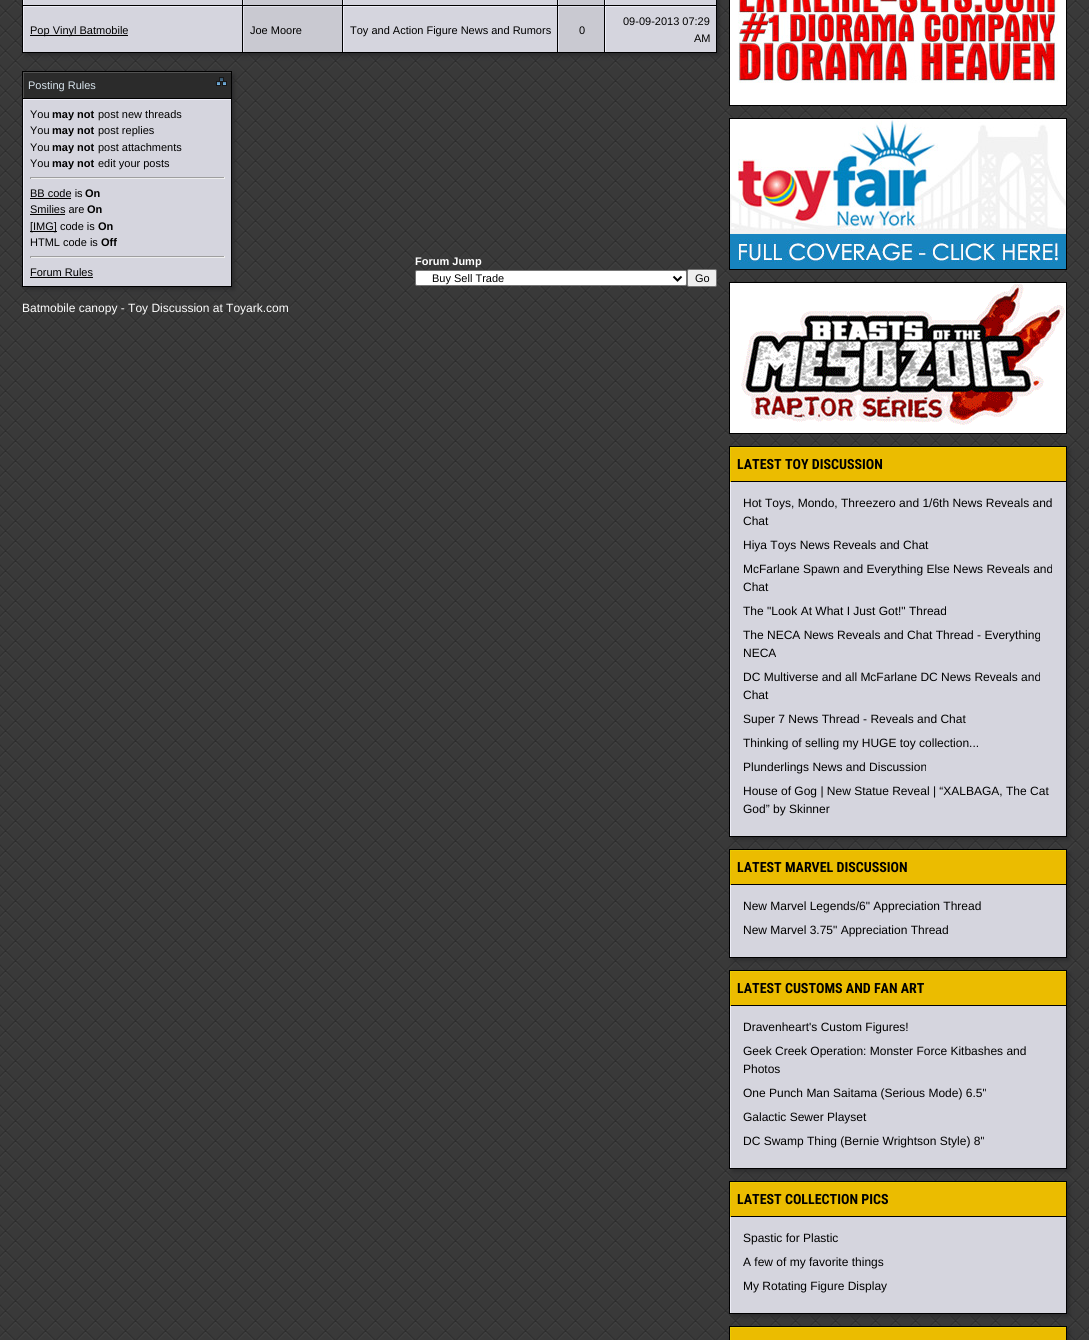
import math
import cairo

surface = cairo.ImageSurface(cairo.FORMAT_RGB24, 1089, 1340)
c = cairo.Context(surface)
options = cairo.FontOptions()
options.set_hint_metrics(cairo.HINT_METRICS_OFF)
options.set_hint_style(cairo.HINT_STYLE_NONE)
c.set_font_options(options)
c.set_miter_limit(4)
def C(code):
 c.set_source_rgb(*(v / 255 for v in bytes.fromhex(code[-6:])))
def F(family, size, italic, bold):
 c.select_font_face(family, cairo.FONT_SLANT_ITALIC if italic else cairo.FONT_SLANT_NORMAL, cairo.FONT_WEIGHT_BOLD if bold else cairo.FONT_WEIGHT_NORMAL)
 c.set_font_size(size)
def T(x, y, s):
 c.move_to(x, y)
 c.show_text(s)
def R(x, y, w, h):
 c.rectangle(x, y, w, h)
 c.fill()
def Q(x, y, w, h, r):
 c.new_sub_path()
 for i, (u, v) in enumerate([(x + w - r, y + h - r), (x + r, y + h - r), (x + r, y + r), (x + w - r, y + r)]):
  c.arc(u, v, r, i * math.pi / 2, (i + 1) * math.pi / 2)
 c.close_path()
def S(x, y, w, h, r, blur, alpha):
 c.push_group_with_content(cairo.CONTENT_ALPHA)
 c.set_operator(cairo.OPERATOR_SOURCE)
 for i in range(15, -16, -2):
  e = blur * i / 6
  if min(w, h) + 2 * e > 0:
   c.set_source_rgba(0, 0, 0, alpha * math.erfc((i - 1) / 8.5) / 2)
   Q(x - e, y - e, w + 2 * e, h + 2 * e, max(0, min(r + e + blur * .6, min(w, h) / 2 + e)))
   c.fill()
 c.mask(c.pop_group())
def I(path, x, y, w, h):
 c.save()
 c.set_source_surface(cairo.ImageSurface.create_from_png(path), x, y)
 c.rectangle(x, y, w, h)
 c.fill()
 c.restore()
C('ffffff')
c.paint()
I('1.png',0,0,1089,1340)
C('29292b')
S(26,-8,693,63,0,2.5,1)
C('000000')
R(22,0,695,53)
C('d5d5de')
R(23,0,219,5)
C('ededf7')
R(23,0,1,5)
C('c9c9d1')
R(243,0,99,5)
C('e1e1eb')
R(243,0,1,5)
C('d5d5de')
R(343,0,214,5)
C('ededf7')
R(343,0,1,5)
C('c9c9d1')
R(558,0,46,5)
C('e1e1eb')
R(558,0,1,5)
C('d5d5de')
R(605,0,111,5)
C('ededf7')
R(605,0,1,5)
C('d5d5de')
R(24,7,218,45)
C('ededf7')
R(23,6,219,1)
R(23,6,1,46)
C('000000')
R(30,35,98,1)
F('Liberation Sans',11,0,0)
T(30,34,'Pop Vinyl Batmobile')
C('c9c9d1')
R(244,7,98,45)
C('e1e1eb')
R(243,6,99,1)
R(243,6,1,46)
C('000000')
T(250,34,'Joe Moore')
C('d5d5de')
R(344,7,213,45)
C('ededf7')
R(343,6,214,1)
R(343,6,1,46)
C('000000')
T(350,34,'Toy and Action Figure News and Rumors')
C('c9c9d1')
R(559,7,45,45)
C('e1e1eb')
R(558,6,46,1)
R(558,6,1,46)
C('000000')
T(579,34,'0')
C('d5d5de')
R(606,7,110,45)
C('ededf7')
R(605,6,111,1)
R(605,6,1,46)
C('000000')
T(623,25,'09-09-2013 07:29')
T(694,42,'AM')
C('29292b')
S(26,75,208,214,0,2.5,1)
C('000000')
R(22,71,210,216)
C('2b2b2b')
R(24,73,207,25)
C('525252')
R(23,72,208,1)
R(23,72,1,26)
C('d8e4ed')
T(28,89,'Posting Rules')
I('2.png',216,77,11,9)
C('d5d5de')
R(24,100,207,186)
C('ededf7')
R(23,99,208,1)
R(23,99,1,187)
C('000000')
T(30,118,'You')
F('Liberation Sans',11,0,1)
T(52,118,'may not')
F('Liberation Sans',11,0,0)
T(98,118,'post new threads')
T(30,134,'You')
F('Liberation Sans',11,0,1)
T(52,134,'may not')
F('Liberation Sans',11,0,0)
T(98,134,'post replies')
T(30,151,'You')
F('Liberation Sans',11,0,1)
T(52,151,'may not')
F('Liberation Sans',11,0,0)
T(98,151,'post attachments')
T(30,167,'You')
F('Liberation Sans',11,0,1)
T(52,167,'may not')
F('Liberation Sans',11,0,0)
T(98,167,'edit your posts')
C('9f9f9f')
R(30,177,195,1)
C('eeeeee')
R(224,177,1,2)
R(30,178,195,1)
C('9f9f9f')
R(30,177,1,2)
C('000000')
T(30,197,'BB code is')
R(30,198,41,1)
F('Liberation Sans',11,0,1)
T(85,197,'On')
F('Liberation Sans',11,0,0)
T(30,213,'Smilies are')
R(30,214,35,1)
F('Liberation Sans',11,0,1)
T(87,213,'On')
R(30,231,27,1)
F('Liberation Sans',11,0,0)
T(30,230,'[IMG] code is')
F('Liberation Sans',11,0,1)
T(98,230,'On')
F('Liberation Sans',11,0,0)
T(30,246,'HTML code is')
F('Liberation Sans',11,0,1)
T(101,246,'Off')
C('9f9f9f')
R(30,256,195,1)
C('eeeeee')
R(224,256,1,2)
R(30,257,195,1)
C('9f9f9f')
R(30,256,1,2)
F('Liberation Sans',11,0,0)
C('000000')
T(30,276,'Forum Rules')
R(30,277,63,1)
F('Liberation Sans',11,0,1)
C('ffffff')
T(415,265,'Forum Jump')
Q(415.5,270.5,271,15,1.5)
c.fill_preserve()
C('767676')
c.set_line_width(1)
c.stroke()
c.new_path()
c.move_to(673.5,276.5)
c.line_to(677.5,280.5)
c.line_to(681.5,276.5)
C('000000')
c.set_line_width(2)
c.stroke()
F('Liberation Sans',11,0,0)
T(432,282,'Buy Sell Trade')
C('efefef')
Q(687.5,269.5,29,17,1.5)
c.fill_preserve()
C('767676')
c.set_line_width(1)
c.stroke()
C('000000')
T(695,282,'Go')
F('Liberation Sans',12,0,0)
C('ffffff')
T(22,312,'Batmobile canopy - Toy Discussion at Toyark.com')
c.rectangle(729.5,-.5,337,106)
C('000000')
c.stroke()
I('3.png',730,0,336,105)
c.rectangle(729.5,118.5,337,151)
c.stroke()
I('4.png',730,119,336,150)
c.rectangle(729.5,282.5,337,151)
c.stroke()
I('5.png',730,283,336,150)
C('29292b')
S(733,450,336,389,0,2.5,1)
C('000000')
R(729,446,338,391)
C('ebbc00')
R(731,448,335,33)
C('ebcb00')
R(730,447,336,1)
R(730,447,1,35)
F('Roboto Condensed',14,0,1)
C('000000')
T(737,469,'LATEST TOY DISCUSSION')
C('d5d5de')
R(730,482,336,6)
C('ededf7')
R(730,482,1,354)
C('d5d5de')
R(731,488,335,348)
F('Liberation Sans',12,0,0)
C('000000')
T(743,507,'Hot Toys, Mondo, Threezero and 1/6th News Reveals and')
T(743,525,'Chat')
T(743,549,'Hiya Toys News Reveals and Chat')
T(743,573,'McFarlane Spawn and Everything Else News Reveals and')
T(743,591,'Chat')
T(743,615,'The "Look At What I Just Got!" Thread')
T(743,639,'The NECA News Reveals and Chat Thread - Everything')
T(743,657,'NECA')
T(743,681,'DC Multiverse and all McFarlane DC News Reveals and')
T(743,699,'Chat')
T(743,723,'Super 7 News Thread - Reveals and Chat')
T(743,747,'Thinking of selling my HUGE toy collection...')
T(743,771,'Plunderlings News and Discussion')
T(743,795,'House of Gog | New Statue Reveal | “XALBAGA, The Cat')
T(743,813,'God” by Skinner')
C('29292b')
S(733,853,336,107,0,2.5,1)
C('000000')
R(729,849,338,109)
C('ebbc00')
R(731,851,335,33)
C('ebcb00')
R(730,850,336,1)
R(730,850,1,35)
F('Roboto Condensed',14,0,1)
C('000000')
T(737,872,'LATEST MARVEL DISCUSSION')
C('d5d5de')
R(730,885,336,6)
C('ededf7')
R(730,885,1,72)
C('d5d5de')
R(731,891,335,66)
F('Liberation Sans',12,0,0)
C('000000')
T(743,910,'New Marvel Legends/6" Appreciation Thread')
T(743,934,'New Marvel 3.75" Appreciation Thread')
C('29292b')
S(733,974,336,197,0,2.5,1)
C('000000')
R(729,970,338,199)
C('ebbc00')
R(731,972,335,33)
C('ebcb00')
R(730,971,336,1)
R(730,971,1,35)
F('Roboto Condensed',14,0,1)
C('000000')
T(737,993,'LATEST CUSTOMS AND FAN ART')
C('d5d5de')
R(730,1006,336,6)
C('ededf7')
R(730,1006,1,162)
C('d5d5de')
R(731,1012,335,156)
F('Liberation Sans',12,0,0)
C('000000')
T(743,1031,'Dravenheart\'s Custom Figures!')
T(743,1055,'Geek Creek Operation: Monster Force Kitbashes and')
T(743,1073,'Photos')
T(743,1097,'One Punch Man Saitama (Serious Mode) 6.5"')
T(743,1121,'Galactic Sewer Playset')
T(743,1145,'DC Swamp Thing (Bernie Wrightson Style) 8"')
C('29292b')
S(733,1185,336,131,0,2.5,1)
C('000000')
R(729,1181,338,133)
C('ebbc00')
R(731,1183,335,33)
C('ebcb00')
R(730,1182,336,1)
R(730,1182,1,35)
F('Roboto Condensed',14,0,1)
C('000000')
T(737,1204,'LATEST COLLECTION PICS')
C('d5d5de')
R(730,1217,336,6)
C('ededf7')
R(730,1217,1,96)
C('d5d5de')
R(731,1223,335,90)
F('Liberation Sans',12,0,0)
C('000000')
T(743,1242,'Spastic for Plastic')
T(743,1266,'A few of my favorite things')
T(743,1290,'My Rotating Figure Display')
C('29292b')
S(733,1330,336,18,0,2.5,1)
C('000000')
R(729,1326,338,14)
C('ebbc00')
R(731,1328,335,12)
C('ebcb00')
R(730,1327,336,1)
R(730,1327,1,13)
surface.write_to_png('o.png')
